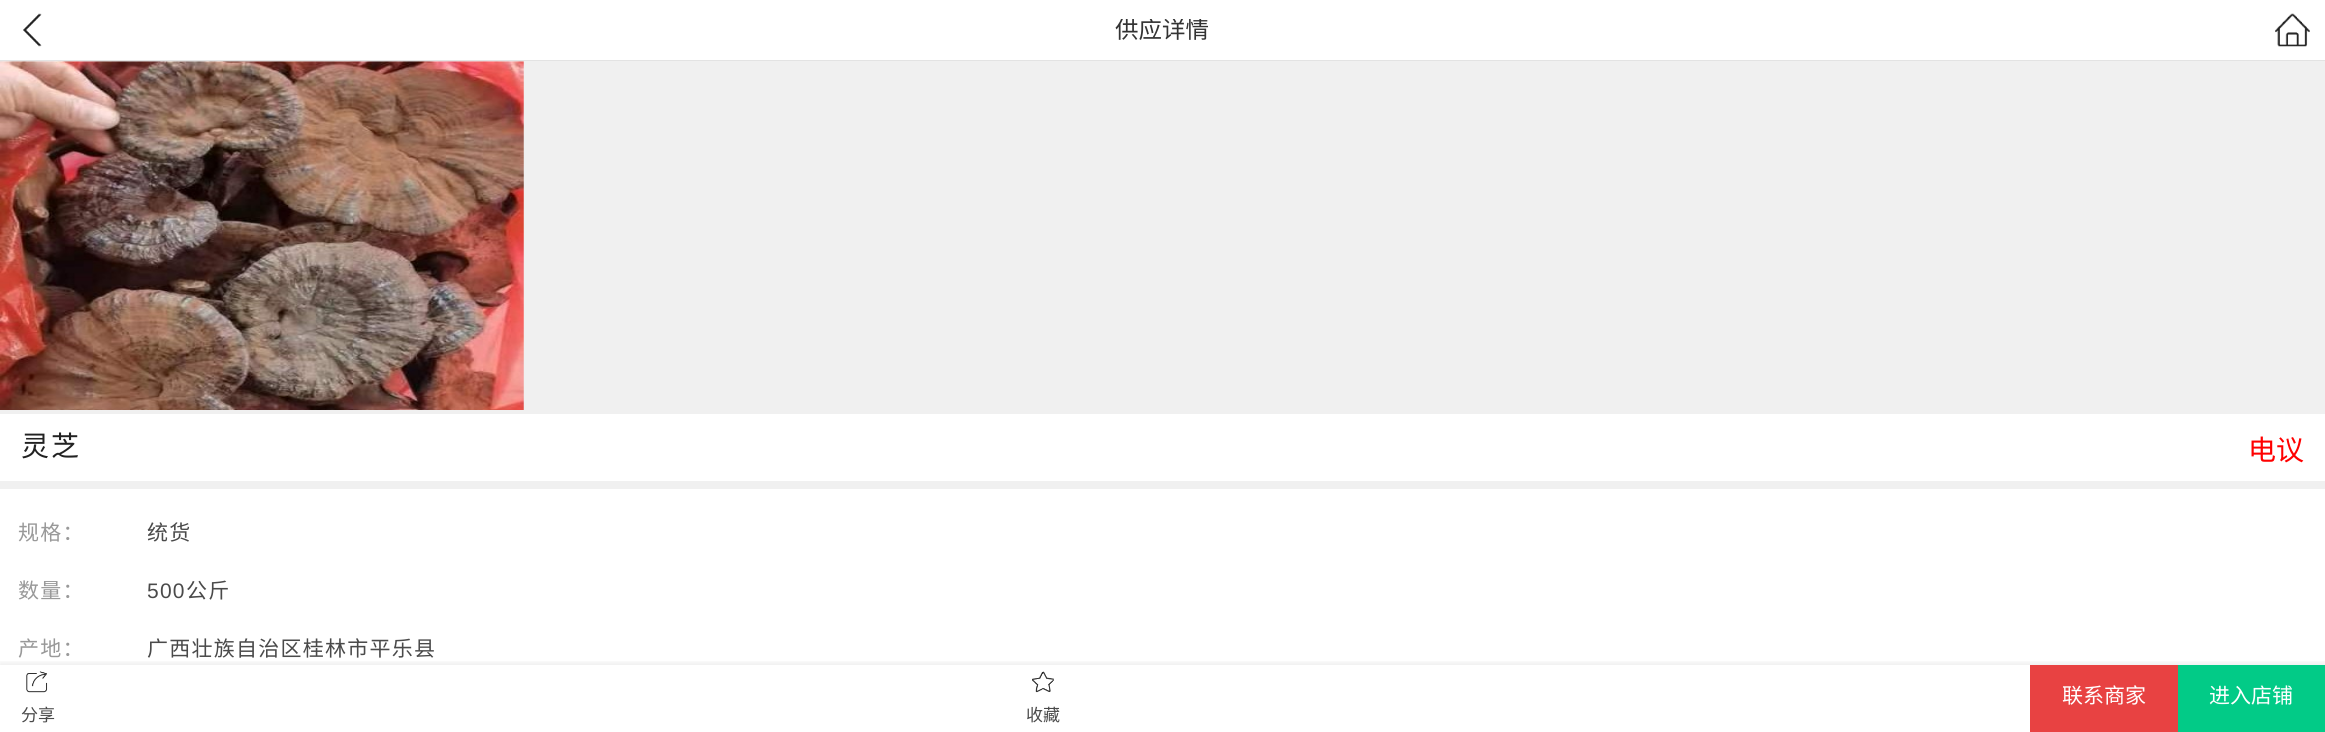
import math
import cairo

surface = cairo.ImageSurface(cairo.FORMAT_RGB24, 2325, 732)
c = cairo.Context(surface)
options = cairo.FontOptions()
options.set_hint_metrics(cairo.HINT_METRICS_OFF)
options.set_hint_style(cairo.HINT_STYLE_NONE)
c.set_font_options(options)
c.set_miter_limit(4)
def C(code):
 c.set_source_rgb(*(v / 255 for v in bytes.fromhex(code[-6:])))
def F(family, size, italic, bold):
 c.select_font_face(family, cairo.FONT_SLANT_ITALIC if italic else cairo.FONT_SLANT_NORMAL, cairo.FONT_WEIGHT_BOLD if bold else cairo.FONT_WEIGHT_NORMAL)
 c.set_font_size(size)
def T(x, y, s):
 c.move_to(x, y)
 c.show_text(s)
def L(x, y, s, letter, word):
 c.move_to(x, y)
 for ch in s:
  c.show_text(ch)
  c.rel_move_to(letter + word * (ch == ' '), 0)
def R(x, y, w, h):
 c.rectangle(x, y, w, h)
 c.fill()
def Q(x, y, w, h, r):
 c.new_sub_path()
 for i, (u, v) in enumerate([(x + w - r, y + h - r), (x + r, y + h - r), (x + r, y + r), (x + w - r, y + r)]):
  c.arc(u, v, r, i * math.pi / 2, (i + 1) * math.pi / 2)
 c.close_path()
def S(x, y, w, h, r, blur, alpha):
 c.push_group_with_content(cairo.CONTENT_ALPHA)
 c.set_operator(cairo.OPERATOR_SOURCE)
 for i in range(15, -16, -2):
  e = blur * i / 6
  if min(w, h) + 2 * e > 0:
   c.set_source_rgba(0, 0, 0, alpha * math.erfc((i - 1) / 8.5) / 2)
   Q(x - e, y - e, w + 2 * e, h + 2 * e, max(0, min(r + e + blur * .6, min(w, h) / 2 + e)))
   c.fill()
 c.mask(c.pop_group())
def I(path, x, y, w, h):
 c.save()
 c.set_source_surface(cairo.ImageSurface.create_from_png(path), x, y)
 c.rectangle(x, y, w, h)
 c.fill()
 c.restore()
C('ffffff')
c.paint()
C('e3e3e3')
R(0,60,2325,1)
I('1.png',23,13,19,34)
c.save()
c.rectangle(988,19,350,24)
c.clip()
F('Noto Sans CJK SC',23.5,0,0)
C('333333')
T(1115,38,'供应详情')
c.restore()
I('2.png',2275,13,35,34)
C('f0f0f0')
R(0,61,2325,428)
I('3.png',0,61,524,349)
C('ffffff')
R(0,414,2325,67)
F('Noto Sans CJK SC',28,0,0)
C('222222')
L(21,456,'灵芝',2,0)
C('ff0000')
T(2248,460,'电议')
F('Noto Sans CJK SC',21,0,0)
C('999999')
L(18,540,'规格：',1.25,0)
C('4a4a4a')
L(147,540,'统货',1.25,0)
C('999999')
L(18,598,'数量：',1.25,0)
F('Liberation Sans',21,0,0)
C('4a4a4a')
L(147,598,'500',1.25,0)
F('Noto Sans CJK SC',21,0,0)
L(186,598,'公斤',1.25,0)
C('999999')
L(18,656,'产地：',1.25,0)
C('4a4a4a')
L(147,656,'广西壮族自治区桂林市平乐县',1.25,0)
c.save()
c.rectangle(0,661,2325,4)
c.clip()
C('000000')
S(0,664,2325,67,0,4,.1)
c.restore()
C('e84242')
R(2030,665,148,67)
C('ffffff')
T(2062,703,'联系商家')
C('02cb87')
R(2178,665,147,67)
C('ffffff')
T(2209,703,'进入店铺')
I('4.png',26,671,22,22)
F('Noto Sans CJK SC',17,0,0)
C('4a4a4a')
T(21,721,'分享')
I('5.png',1032,671,22,22)
T(1026,721,'收藏')
surface.write_to_png('o.png')
